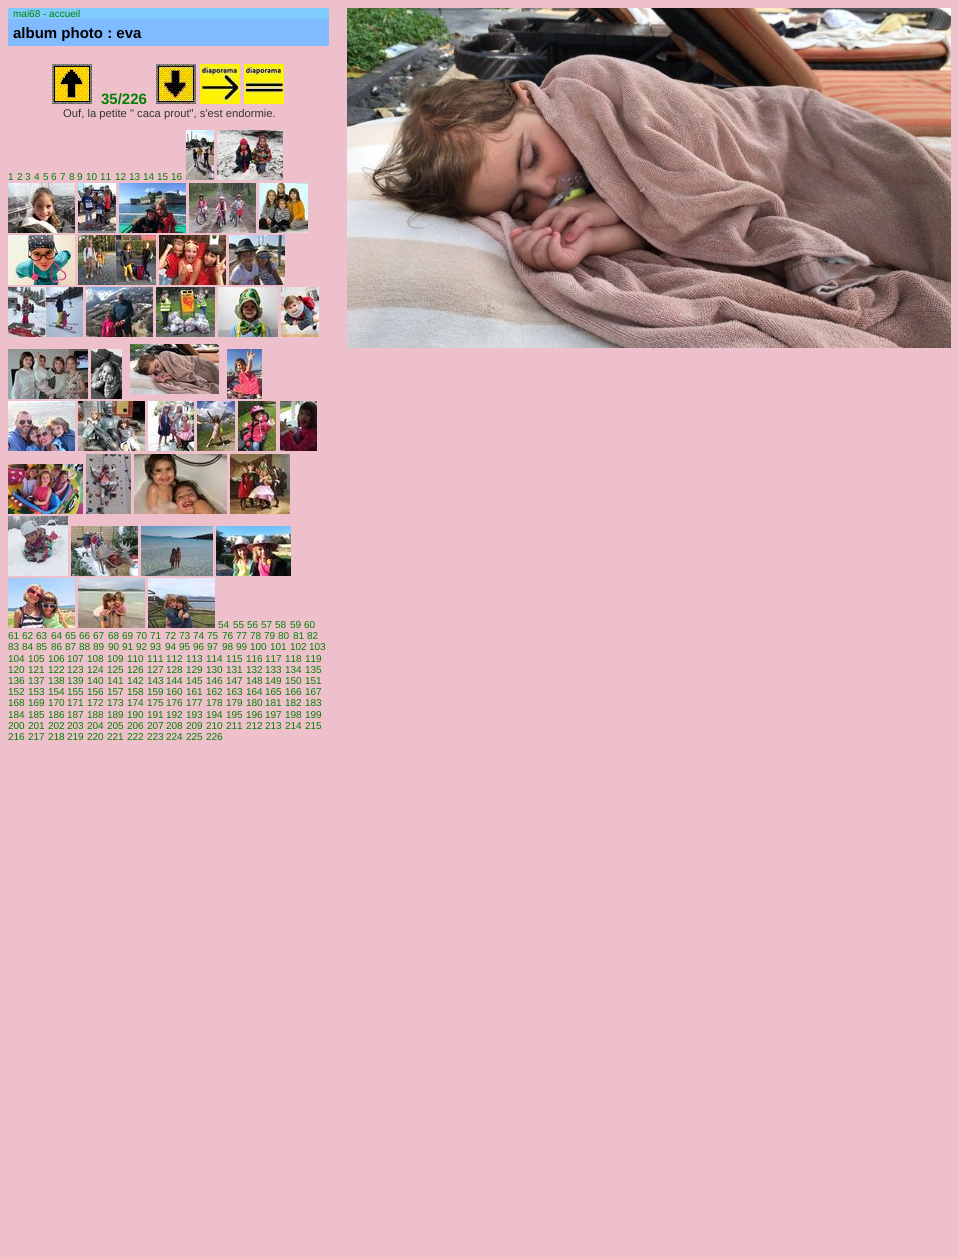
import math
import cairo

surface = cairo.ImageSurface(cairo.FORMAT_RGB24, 959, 1259)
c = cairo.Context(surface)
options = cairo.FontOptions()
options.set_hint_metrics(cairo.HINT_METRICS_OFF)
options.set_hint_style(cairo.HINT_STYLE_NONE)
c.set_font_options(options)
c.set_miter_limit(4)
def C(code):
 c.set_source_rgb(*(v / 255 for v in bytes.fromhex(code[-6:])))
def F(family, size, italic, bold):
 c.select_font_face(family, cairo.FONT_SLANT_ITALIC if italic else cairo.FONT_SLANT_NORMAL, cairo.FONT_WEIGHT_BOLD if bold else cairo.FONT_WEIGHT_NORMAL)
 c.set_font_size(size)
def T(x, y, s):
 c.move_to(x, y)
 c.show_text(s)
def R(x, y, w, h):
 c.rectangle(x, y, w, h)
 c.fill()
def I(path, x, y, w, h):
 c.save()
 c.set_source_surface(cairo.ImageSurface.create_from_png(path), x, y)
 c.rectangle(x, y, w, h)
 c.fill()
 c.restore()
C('eec0cb')
c.paint()
C('80ccff')
R(8,8,321,11)
F('Liberation Sans',10,0,0)
C('008000')
T(13,17,'mai68 - accueil')
C('80bbff')
R(8,19,321,27)
F('Liberation Sans',15,0,1)
C('000000')
T(13,38,'album photo : eva')
I('1.png',52,64,40,40)
C('008000')
T(101,104,'35/226')
I('2.png',156,64,40,40)
I('3.png',200,64,40,40)
I('4.png',244,64,40,40)
F('Liberation Sans',11.25,0,0)
C('333333')
T(63,117,'Ouf, la petite " caca prout", s\'est endormie.')
F('Liberation Sans',10,0,0)
C('008000')
T(8,180,'1')
T(17,180,'2')
T(25,180,'3')
T(34,180,'4')
T(43,180,'5')
T(51,180,'6')
T(60,180,'7')
T(69,180,'8')
T(77,180,'9')
T(86,180,'10')
T(100,180,'11')
T(115,180,'12')
T(129,180,'13')
T(143,180,'14')
T(157,180,'15')
T(171,180,'16')
I('5.png',186,130,28,50)
I('6.png',217,130,66,50)
I('7.png',8,183,67,50)
I('8.png',78,183,38,50)
I('9.png',119,183,67,50)
I('10.png',189,183,67,50)
I('11.png',259,183,49,50)
I('12.png',8,235,67,50)
I('13.png',78,235,78,50)
I('14.png',159,235,67,50)
I('15.png',229,235,56,50)
I('16.png',8,287,75,50)
I('17.png',86,287,67,50)
I('18.png',156,287,59,50)
I('19.png',218,287,60,50)
I('20.png',281,287,38,50)
I('21.png',8,349,80,50)
I('22.png',91,349,31,50)
I('23.png',130,344,89,50)
I('24.png',227,349,35,50)
I('25.png',8,401,67,50)
I('26.png',78,401,67,50)
I('27.png',148,401,46,50)
I('28.png',197,401,38,50)
I('29.png',238,401,38,50)
I('30.png',280,401,37,50)
I('31.png',8,464,75,50)
I('32.png',86,454,45,60)
I('33.png',134,454,93,60)
I('34.png',230,454,60,60)
I('35.png',8,516,60,60)
I('36.png',71,526,67,50)
I('37.png',141,526,72,50)
I('38.png',216,526,75,50)
I('39.png',8,578,67,50)
I('40.png',78,578,67,50)
I('41.png',148,578,67,50)
T(218,628,'54')
T(233,628,'55')
T(247,628,'56')
T(261,628,'57')
T(275,628,'58')
T(290,628,'59')
T(304,628,'60')
T(8,639,'61')
T(22,639,'62')
T(36,639,'63')
T(51,639,'64')
T(65,639,'65')
T(79,639,'66')
T(93,639,'67')
T(108,639,'68')
T(122,639,'69')
T(136,639,'70')
T(150,639,'71')
T(165,639,'72')
T(179,639,'73')
T(193,639,'74')
T(207,639,'75')
T(222,639,'76')
T(236,639,'77')
T(250,639,'78')
T(264,639,'79')
T(278,639,'80')
T(293,639,'81')
T(307,639,'82')
T(8,650,'83')
T(22,650,'84')
T(36,650,'85')
T(51,650,'86')
T(65,650,'87')
T(79,650,'88')
T(93,650,'89')
T(108,650,'90')
T(122,650,'91')
T(136,650,'92')
T(150,650,'93')
T(165,650,'94')
T(179,650,'95')
T(193,650,'96')
T(207,650,'97')
T(222,650,'98')
T(236,650,'99')
T(250,650,'100')
T(270,650,'101')
T(290,650,'102')
T(309,650,'103')
T(8,662,'104')
T(28,662,'105')
T(48,662,'106')
T(67,662,'107')
T(87,662,'108')
T(107,662,'109')
T(127,662,'110')
T(147,662,'111')
T(166,662,'112')
T(186,662,'113')
T(206,662,'114')
T(226,662,'115')
T(246,662,'116')
T(265,662,'117')
T(285,662,'118')
T(305,662,'119')
T(8,673,'120')
T(28,673,'121')
T(48,673,'122')
T(67,673,'123')
T(87,673,'124')
T(107,673,'125')
T(127,673,'126')
T(147,673,'127')
T(166,673,'128')
T(186,673,'129')
T(206,673,'130')
T(226,673,'131')
T(246,673,'132')
T(265,673,'133')
T(285,673,'134')
T(305,673,'135')
T(8,684,'136')
T(28,684,'137')
T(48,684,'138')
T(67,684,'139')
T(87,684,'140')
T(107,684,'141')
T(127,684,'142')
T(147,684,'143')
T(166,684,'144')
T(186,684,'145')
T(206,684,'146')
T(226,684,'147')
T(246,684,'148')
T(265,684,'149')
T(285,684,'150')
T(305,684,'151')
T(8,695,'152')
T(28,695,'153')
T(48,695,'154')
T(67,695,'155')
T(87,695,'156')
T(107,695,'157')
T(127,695,'158')
T(147,695,'159')
T(166,695,'160')
T(186,695,'161')
T(206,695,'162')
T(226,695,'163')
T(246,695,'164')
T(265,695,'165')
T(285,695,'166')
T(305,695,'167')
T(8,706,'168')
T(28,706,'169')
T(48,706,'170')
T(67,706,'171')
T(87,706,'172')
T(107,706,'173')
T(127,706,'174')
T(147,706,'175')
T(166,706,'176')
T(186,706,'177')
T(206,706,'178')
T(226,706,'179')
T(246,706,'180')
T(265,706,'181')
T(285,706,'182')
T(305,706,'183')
T(8,718,'184')
T(28,718,'185')
T(48,718,'186')
T(67,718,'187')
T(87,718,'188')
T(107,718,'189')
T(127,718,'190')
T(147,718,'191')
T(166,718,'192')
T(186,718,'193')
T(206,718,'194')
T(226,718,'195')
T(246,718,'196')
T(265,718,'197')
T(285,718,'198')
T(305,718,'199')
T(8,729,'200')
T(28,729,'201')
T(48,729,'202')
T(67,729,'203')
T(87,729,'204')
T(107,729,'205')
T(127,729,'206')
T(147,729,'207')
T(166,729,'208')
T(186,729,'209')
T(206,729,'210')
T(226,729,'211')
T(246,729,'212')
T(265,729,'213')
T(285,729,'214')
T(305,729,'215')
T(8,740,'216')
T(28,740,'217')
T(48,740,'218')
T(67,740,'219')
T(87,740,'220')
T(107,740,'221')
T(127,740,'222')
T(147,740,'223')
T(166,740,'224')
T(186,740,'225')
T(206,740,'226')
I('42.png',347,8,604,340)
surface.write_to_png('o.png')
